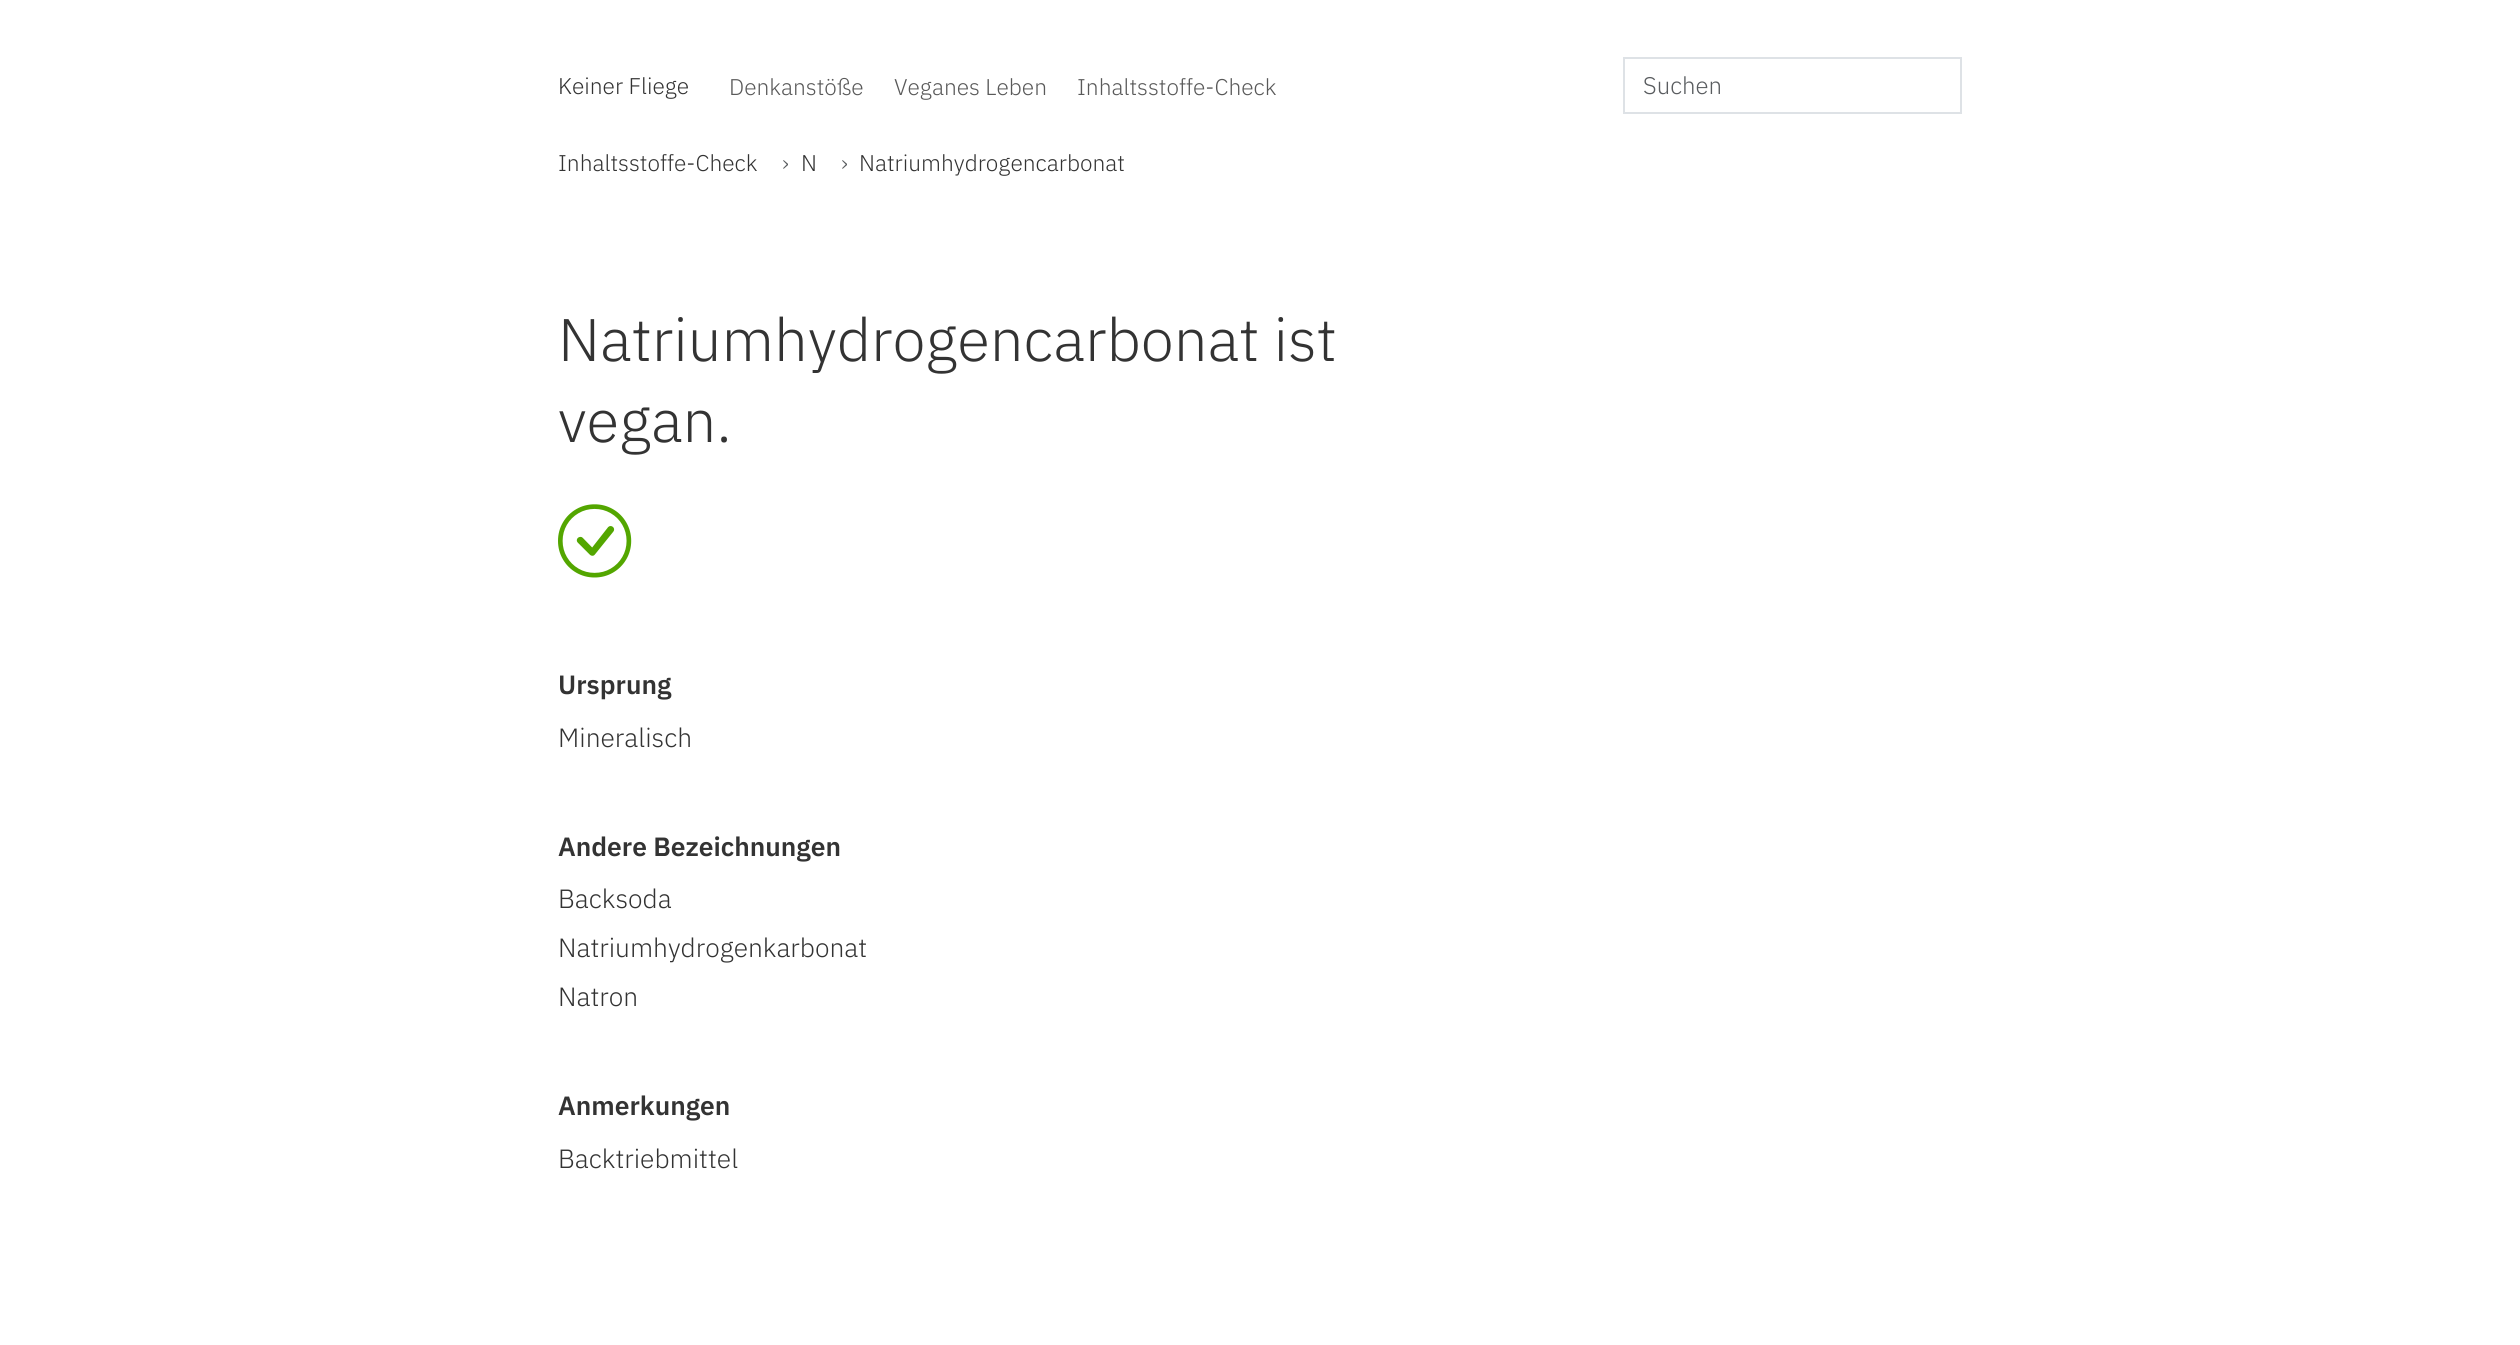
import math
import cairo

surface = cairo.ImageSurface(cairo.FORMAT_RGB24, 2520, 1345)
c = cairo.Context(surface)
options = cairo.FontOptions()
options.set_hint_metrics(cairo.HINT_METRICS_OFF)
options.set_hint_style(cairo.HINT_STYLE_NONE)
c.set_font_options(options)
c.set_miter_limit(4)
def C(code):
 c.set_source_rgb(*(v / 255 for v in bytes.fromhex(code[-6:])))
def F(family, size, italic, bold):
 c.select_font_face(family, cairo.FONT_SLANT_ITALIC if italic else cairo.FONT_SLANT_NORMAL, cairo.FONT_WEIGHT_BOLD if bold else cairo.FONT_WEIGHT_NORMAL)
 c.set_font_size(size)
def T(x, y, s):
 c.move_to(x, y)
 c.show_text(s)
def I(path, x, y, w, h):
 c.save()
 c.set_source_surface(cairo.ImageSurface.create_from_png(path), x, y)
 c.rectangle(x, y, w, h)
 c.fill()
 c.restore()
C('ffffff')
c.paint()
F('IBM Plex Sans Light',22.75,0,0)
C('333333')
T(558,94,'Keiner Fliege')
C('595959')
T(729,95,'Denkanstöße')
T(894,95,'Veganes Leben')
T(1077,95,'Inhaltsstoffe-Check')
c.rectangle(1624,58,337,55)
C('dee2e6')
c.stroke()
F('IBM Plex Sans Light',24,0,0)
C('595c5f')
T(1643,94,'Suchen')
F('IBM Plex Sans Light',22.75,0,0)
C('333333')
T(558,171,'Inhaltsstoffe-Check')
C('595c5f')
T(782,171,'›')
C('333333')
T(801,171,'N')
C('595c5f')
T(841,171,'›')
C('333333')
T(859,171,'Natriumhydrogencarbonat')
F('IBM Plex Sans Light',60,0,0)
T(558,361,'Natriumhydrogencarbonat ist')
T(558,442,'vegan.')
I('1.png',558,504,74,74)
F('IBM Plex Sans SemiBold',26.4,0,0)
T(558,694,'Ursprung')
F('IBM Plex Sans Light',26.4,0,0)
T(558,747,'Mineralisch')
F('IBM Plex Sans SemiBold',26.4,0,0)
T(558,856,'Andere Bezeichnungen')
F('IBM Plex Sans Light',26.4,0,0)
T(558,908,'Backsoda')
T(558,957,'Natriumhydrogenkarbonat')
T(558,1006,'Natron')
F('IBM Plex Sans SemiBold',26.4,0,0)
T(558,1115,'Anmerkungen')
F('IBM Plex Sans Light',26.4,0,0)
T(558,1168,'Backtriebmittel')
surface.write_to_png('o.png')
